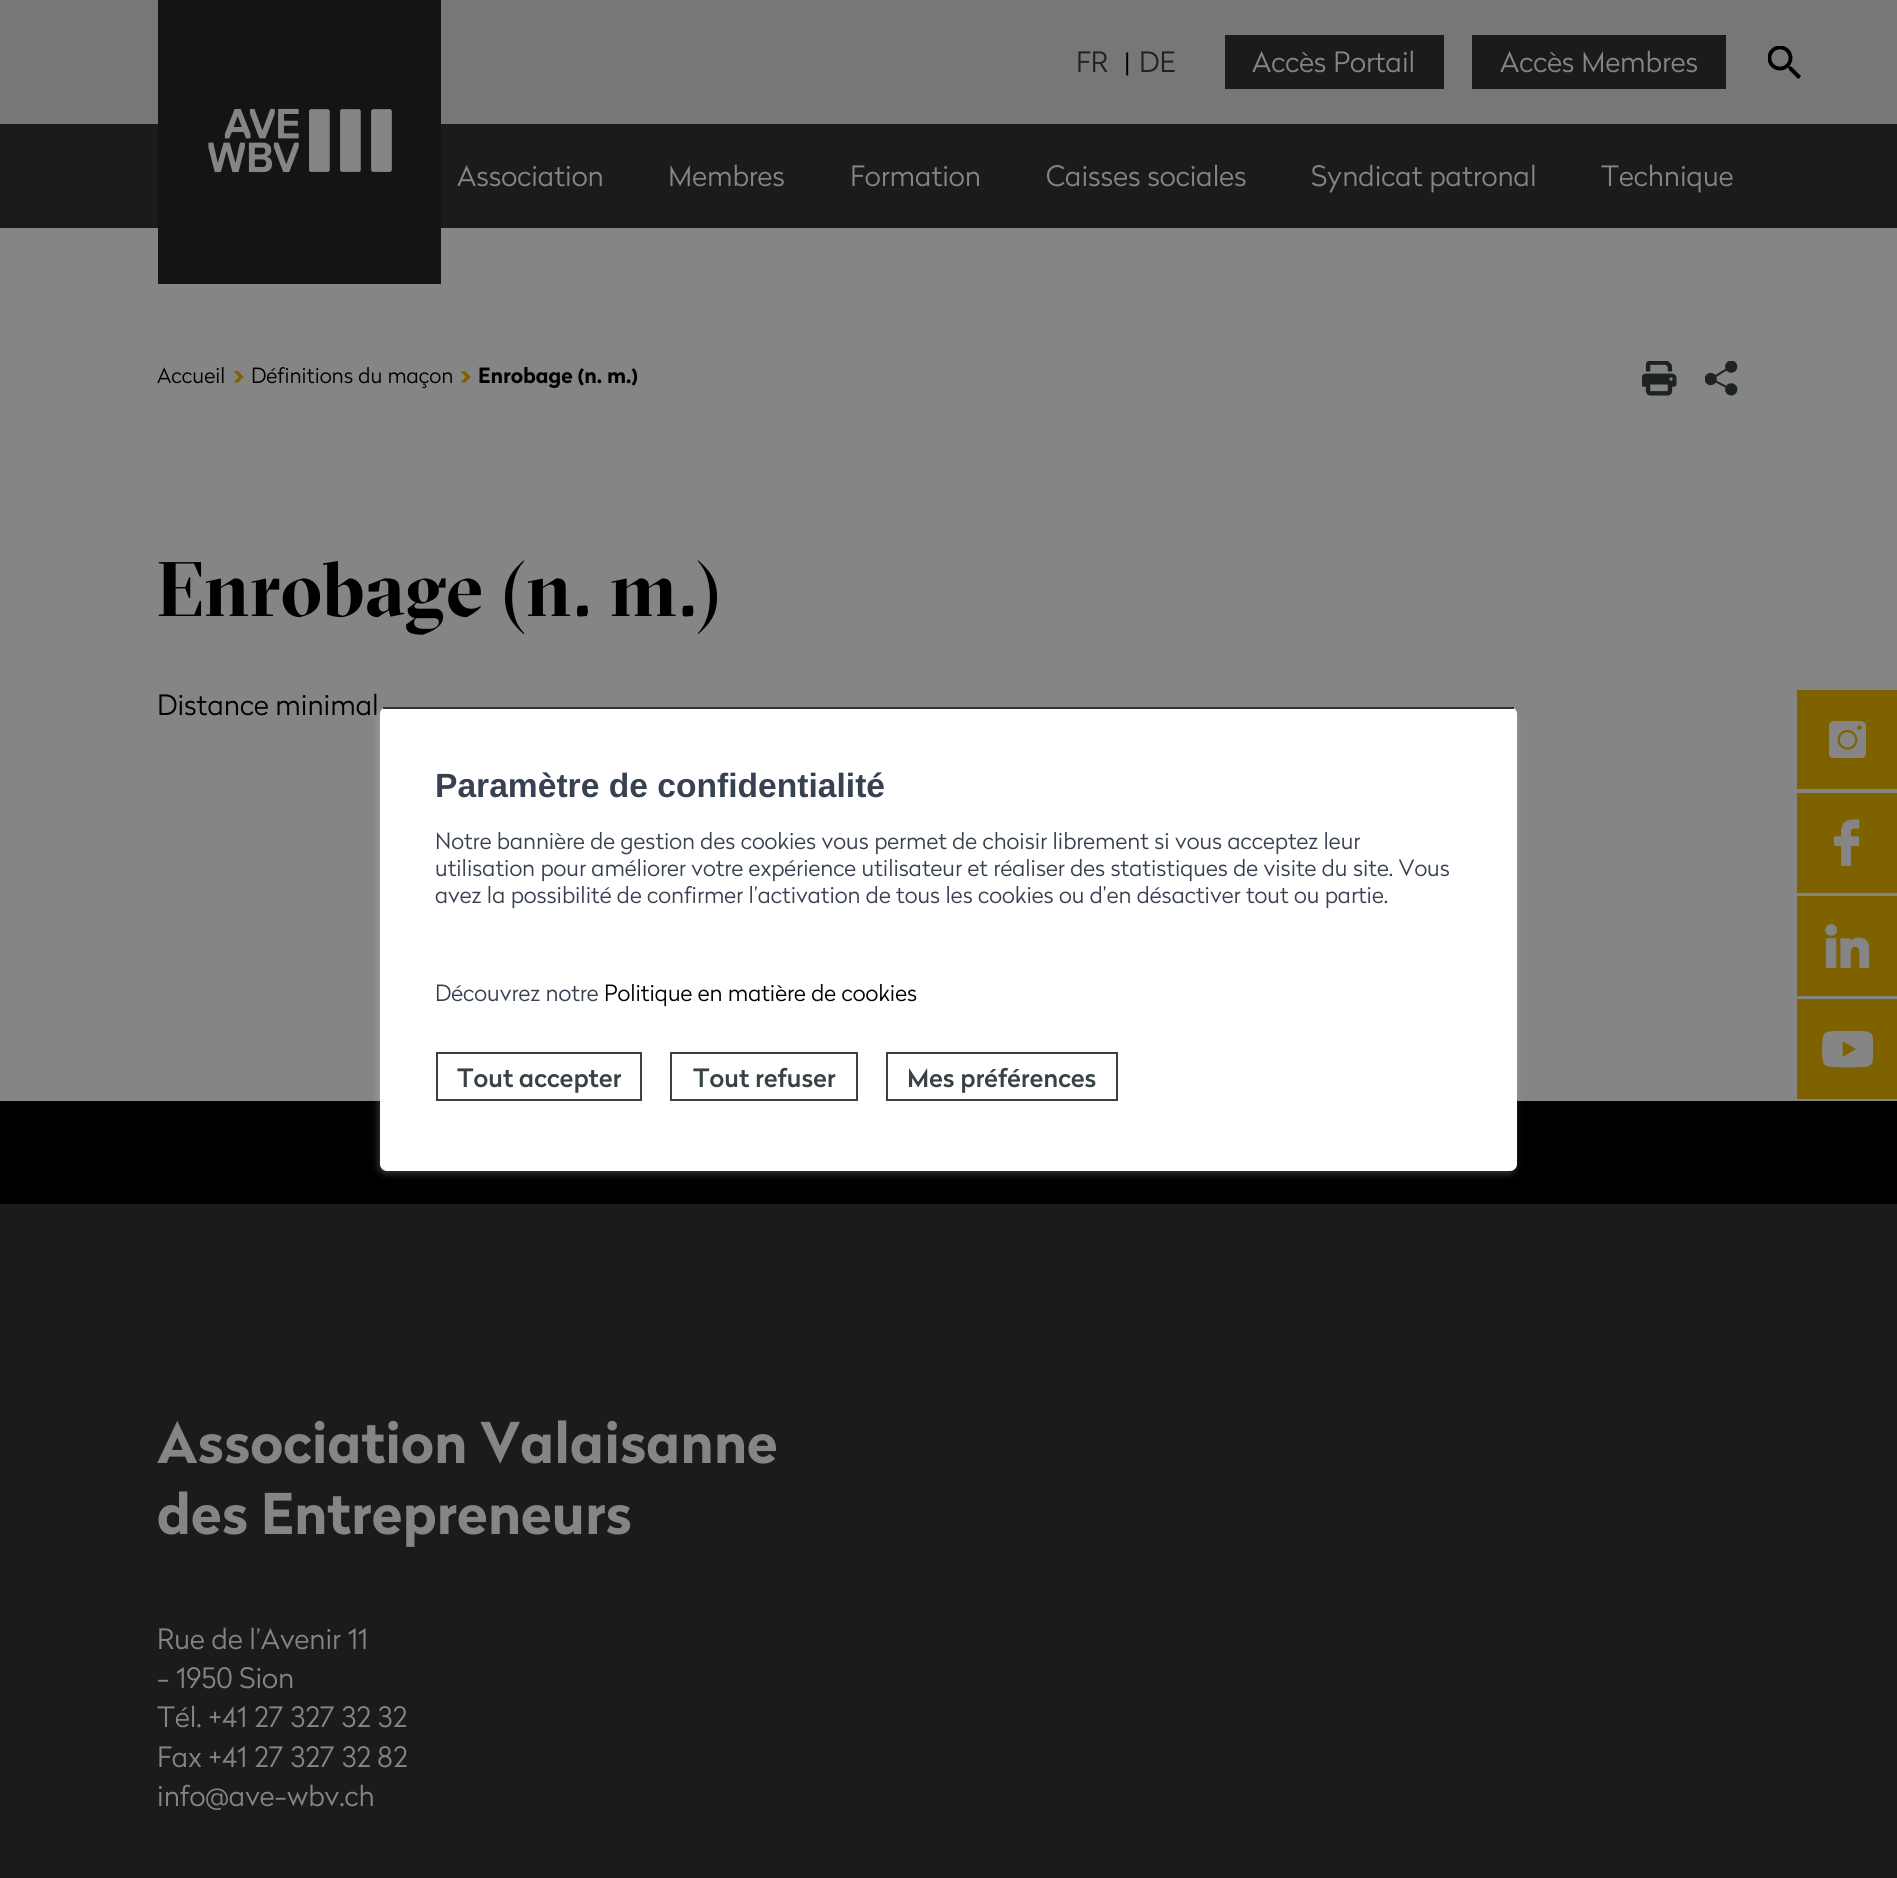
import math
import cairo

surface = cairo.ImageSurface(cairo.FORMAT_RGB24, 1897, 1878)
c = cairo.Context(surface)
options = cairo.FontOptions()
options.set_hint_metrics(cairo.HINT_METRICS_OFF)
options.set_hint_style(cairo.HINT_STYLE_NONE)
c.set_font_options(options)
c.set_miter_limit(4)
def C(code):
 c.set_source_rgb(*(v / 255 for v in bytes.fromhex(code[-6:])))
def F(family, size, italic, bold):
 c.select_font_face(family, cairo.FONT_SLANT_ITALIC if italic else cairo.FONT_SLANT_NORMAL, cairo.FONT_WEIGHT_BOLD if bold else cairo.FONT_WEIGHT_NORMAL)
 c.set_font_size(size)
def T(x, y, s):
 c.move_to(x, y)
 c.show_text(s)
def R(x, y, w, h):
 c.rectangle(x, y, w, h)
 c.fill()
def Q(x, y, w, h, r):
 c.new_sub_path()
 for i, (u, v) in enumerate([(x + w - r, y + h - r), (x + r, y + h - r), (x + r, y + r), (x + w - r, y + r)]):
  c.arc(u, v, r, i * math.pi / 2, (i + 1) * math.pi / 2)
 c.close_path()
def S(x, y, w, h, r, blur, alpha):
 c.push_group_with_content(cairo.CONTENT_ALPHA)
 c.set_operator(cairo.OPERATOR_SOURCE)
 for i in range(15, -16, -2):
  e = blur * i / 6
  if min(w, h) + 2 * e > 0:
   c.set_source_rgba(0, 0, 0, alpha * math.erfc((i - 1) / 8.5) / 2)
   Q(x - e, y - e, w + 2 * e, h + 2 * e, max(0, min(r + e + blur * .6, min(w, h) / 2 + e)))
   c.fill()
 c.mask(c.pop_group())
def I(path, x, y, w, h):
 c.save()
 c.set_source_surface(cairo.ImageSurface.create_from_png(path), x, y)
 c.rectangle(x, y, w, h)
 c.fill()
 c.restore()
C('858585')
c.paint()
C('777777')
R(0,0,1897,124)
C('1b1b1b')
R(0,124,1897,104)
I('1.png',158,0,283,284)
F('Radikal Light',28,0,0)
C('1d2223')
T(1076,72,'FR')
C('000000')
T(1124,72,'|')
C('1d2223')
T(1139,72,'DE')
C('1b1b1b')
R(1225,35,219,54)
C('858585')
T(1252,72,'Accès Portail')
C('1b1b1b')
R(1472,35,254,54)
C('858585')
T(1500,72,'Accès Membres')
I('2.png',1768,46,33,33)
T(457,186,'Association')
T(668,186,'Membres')
T(850,186,'Formation')
T(1046,186,'Caisses sociales')
T(1311,186,'Syndicat patronal')
T(1601,186,'Technique')
C('7f6200')
R(1797,690,100,99)
I('3.png',1829,721,37,37)
R(1797,793,100,100)
I('4.png',1834,819,26,47)
R(1797,896,100,100)
I('5.png',1825,924,44,44)
R(1797,999,100,100)
I('6.png',1822,1031,51,37)
F('Radikal Light',21,0,0)
C('000000')
T(157,383,'Accueil')
F('Radikal',28,0,1)
C('7f6200')
T(233,384,'›')
F('Radikal Light',21,0,0)
C('000000')
T(251,383,'Définitions du maçon')
F('Radikal',28,0,1)
C('7f6200')
T(460,384,'›')
F('Radikal',21,0,1)
C('000000')
T(478,383,'Enrobage (n. m.)')
I('7.png',1642,361,35,35)
I('8.png',1705,361,33,35)
F('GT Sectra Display',77,0,1)
T(157,616,'Enrobage (n. m.)')
F('Radikal Light',28,0,0)
T(157,715,'Distance minimal')
C('1b1b1b')
R(0,1204,1897,674)
C('000000')
R(0,1101,1897,103)
F('Radikal',56,0,1)
C('858585')
T(157,1463,'Association Valaisanne')
T(157,1534,'des Entrepreneurs')
F('Radikal Light',28,0,0)
T(157,1649,'Rue de l’Avenir 11')
T(157,1688,'- 1950 Sion')
T(157,1727,'Tél. +41 27 327 32 32')
T(157,1767,'Fax +41 27 327 32 82')
T(157,1806,'info@ave-wbv.ch')
C('ffffff')
S(378,711,1138,463,7,3.5,.2)
C('ffffff')
Q(380,707,1137,464,7)
c.fill()
C('333333')
R(383,707,1131,2)
F('Liberation Sans',33.6,0,1)
C('374151')
T(435,797,'Paramètre de confidentialité')
F('Radikal Light',22.4,0,0)
T(435,849,'Notre bannière de gestion des cookies vous permet de choisir librement si vous acceptez leur')
T(435,876,'utilisation pour améliorer votre expérience utilisateur et réaliser des statistiques de visite du site. Vous')
T(435,903,'avez la possibilité de confirmer l’activation de tous les cookies ou d’en désactiver tout ou partie.')
T(435,1001,'Découvrez notre')
C('000000')
T(604,1001,'Politique en matière de cookies')
c.rectangle(437,1053,204,47)
C('384144')
c.stroke()
F('Radikal Medium',25.25,0,0)
T(457,1087,'Tout accepter')
c.rectangle(671,1053,186,47)
c.stroke()
T(693,1087,'Tout refuser')
c.rectangle(887,1053,230,47)
c.stroke()
T(907,1087,'Mes préférences')
surface.write_to_png('o.png')
